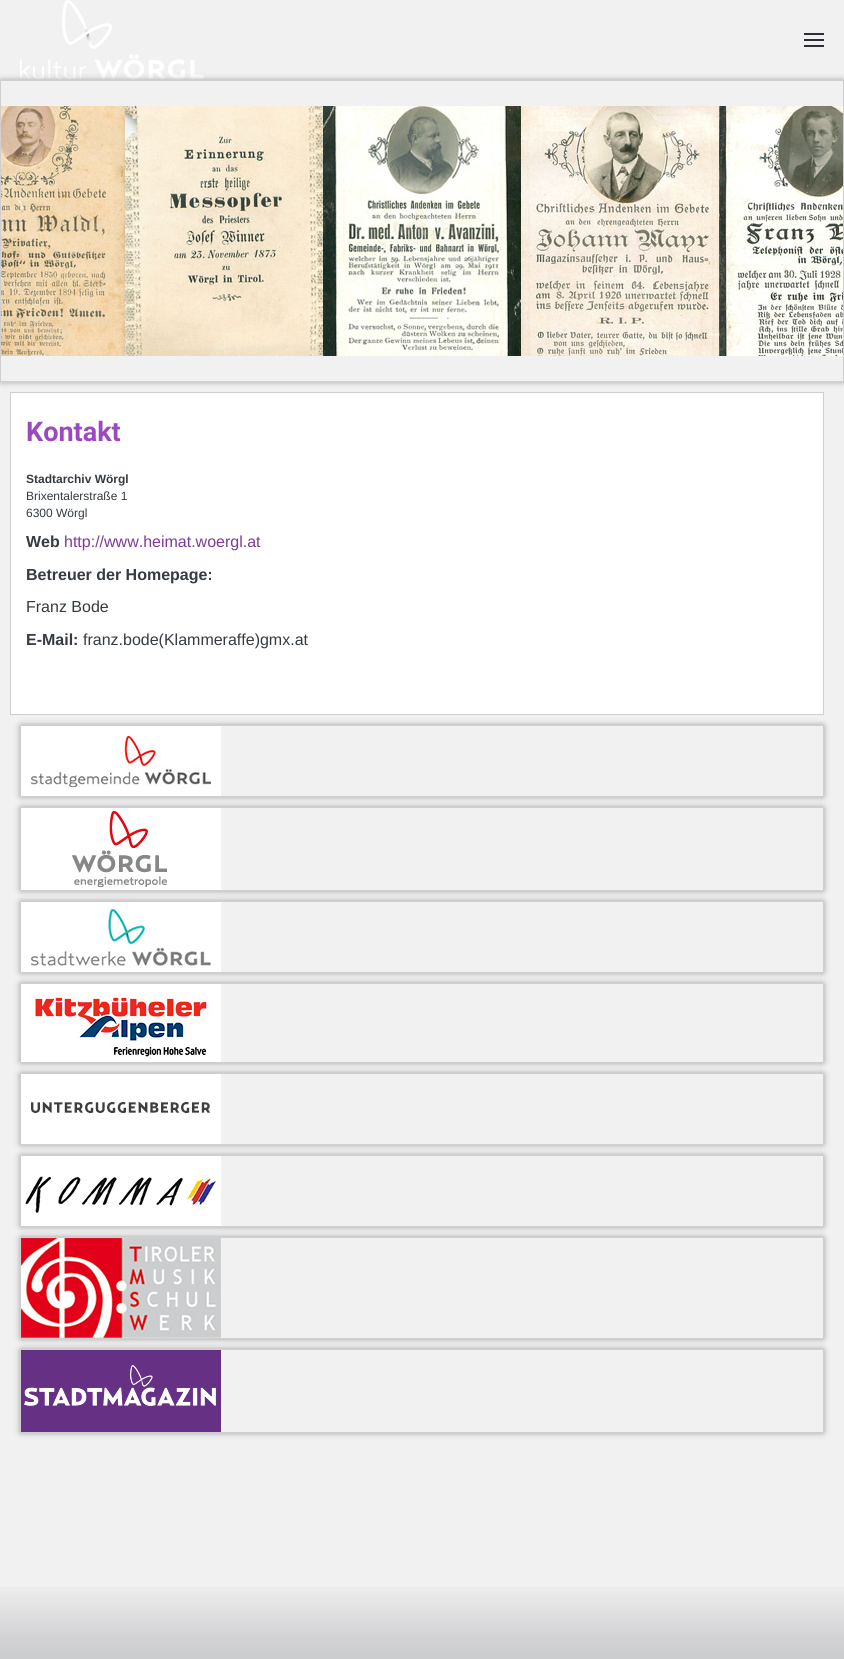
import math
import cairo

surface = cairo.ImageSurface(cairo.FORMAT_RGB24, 844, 1659)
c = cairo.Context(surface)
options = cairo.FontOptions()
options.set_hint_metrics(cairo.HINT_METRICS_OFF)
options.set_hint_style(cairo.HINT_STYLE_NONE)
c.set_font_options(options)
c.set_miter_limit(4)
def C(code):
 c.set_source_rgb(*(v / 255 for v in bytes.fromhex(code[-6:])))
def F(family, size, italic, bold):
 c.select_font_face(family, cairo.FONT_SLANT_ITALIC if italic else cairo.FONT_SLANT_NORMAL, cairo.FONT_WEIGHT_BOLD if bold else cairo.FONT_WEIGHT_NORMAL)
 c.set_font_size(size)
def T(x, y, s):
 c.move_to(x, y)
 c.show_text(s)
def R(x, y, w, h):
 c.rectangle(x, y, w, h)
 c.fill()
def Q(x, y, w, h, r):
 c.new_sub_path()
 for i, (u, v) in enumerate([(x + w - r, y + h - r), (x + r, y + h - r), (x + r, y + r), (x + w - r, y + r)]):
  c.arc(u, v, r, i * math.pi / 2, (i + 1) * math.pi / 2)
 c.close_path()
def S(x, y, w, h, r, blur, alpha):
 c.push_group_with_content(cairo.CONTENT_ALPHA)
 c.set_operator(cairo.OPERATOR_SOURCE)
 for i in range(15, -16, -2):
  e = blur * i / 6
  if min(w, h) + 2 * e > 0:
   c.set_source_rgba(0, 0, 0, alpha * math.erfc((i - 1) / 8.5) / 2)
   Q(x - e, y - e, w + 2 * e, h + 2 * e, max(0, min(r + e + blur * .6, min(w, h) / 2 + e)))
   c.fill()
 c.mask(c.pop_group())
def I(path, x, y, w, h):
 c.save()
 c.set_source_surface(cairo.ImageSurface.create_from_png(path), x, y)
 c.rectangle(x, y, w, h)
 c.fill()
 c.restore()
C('f1f1f1')
c.paint()
I('1.png',0,1587,844,72)
I('2.png',20,0,184,80)
C('2d2e33')
R(804,33,20,2)
R(804,39,20,2)
R(804,45,20,2)
c.save()
c.set_fill_rule(cairo.FILL_RULE_EVEN_ODD)
c.new_path()
c.move_to(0,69)
c.line_to(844,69)
c.line_to(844,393)
c.line_to(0,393)
c.close_path()
c.move_to(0,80)
c.line_to(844,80)
c.line_to(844,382)
c.line_to(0,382)
c.close_path()
c.clip()
C('888888')
S(1,81,842,300,0,3.5,1)
c.restore()
c.rectangle(.5,80.5,843,301)
C('cfcfcf')
c.set_line_width(1)
c.stroke()
I('3.png',1,106,842,250)
C('ffffff')
c.rectangle(10.5,392.5,813,322)
c.fill_preserve()
C('cfcfcf')
c.stroke()
F('Roboto',27,0,1)
C('9c49bf')
T(26,441,'Kontakt')
F('Liberation Sans',12,0,1)
C('353b40')
T(26,483,'Stadtarchiv Wörgl')
F('Liberation Sans',12,0,0)
T(26,500,'Brixentalerstraße 1')
T(26,517,'6300 Wörgl')
F('Liberation Sans',16,0,1)
T(26,547,'Web')
F('Liberation Sans',16,0,0)
C('7d3a99')
T(64,547,'http://www.heimat.woergl.at')
F('Liberation Sans',16,0,1)
C('353b40')
T(26,580,'Betreuer der Homepage:')
F('Liberation Sans',16,0,0)
T(26,612,'Franz Bode')
F('Liberation Sans',16,0,1)
T(26,645,'E-Mail:')
F('Liberation Sans',16,0,0)
T(83,645,'franz.bode(Klammeraffe)gmx.at')
c.save()
c.set_fill_rule(cairo.FILL_RULE_EVEN_ODD)
c.new_path()
c.move_to(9,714)
c.line_to(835,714)
c.line_to(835,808)
c.line_to(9,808)
c.close_path()
c.move_to(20,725)
c.line_to(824,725)
c.line_to(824,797)
c.line_to(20,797)
c.close_path()
c.clip()
C('888888')
S(21,726,802,70,0,3.5,1)
c.restore()
c.rectangle(20.5,725.5,803,71)
C('cfcfcf')
c.stroke()
I('4.png',21,726,200,70)
c.save()
c.set_fill_rule(cairo.FILL_RULE_EVEN_ODD)
c.new_path()
c.move_to(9,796)
c.line_to(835,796)
c.line_to(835,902)
c.line_to(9,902)
c.close_path()
c.move_to(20,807)
c.line_to(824,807)
c.line_to(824,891)
c.line_to(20,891)
c.close_path()
c.clip()
C('888888')
S(21,808,802,82,0,3.5,1)
c.restore()
c.rectangle(20.5,807.5,803,83)
c.stroke()
I('5.png',21,808,200,82)
c.save()
c.set_fill_rule(cairo.FILL_RULE_EVEN_ODD)
c.new_path()
c.move_to(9,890)
c.line_to(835,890)
c.line_to(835,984)
c.line_to(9,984)
c.close_path()
c.move_to(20,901)
c.line_to(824,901)
c.line_to(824,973)
c.line_to(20,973)
c.close_path()
c.clip()
C('888888')
S(21,902,802,70,0,3.5,1)
c.restore()
c.rectangle(20.5,901.5,803,71)
c.stroke()
I('6.png',21,902,200,70)
c.save()
c.set_fill_rule(cairo.FILL_RULE_EVEN_ODD)
c.new_path()
c.move_to(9,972)
c.line_to(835,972)
c.line_to(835,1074)
c.line_to(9,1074)
c.close_path()
c.move_to(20,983)
c.line_to(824,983)
c.line_to(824,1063)
c.line_to(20,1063)
c.close_path()
c.clip()
C('888888')
S(21,984,802,78,0,3.5,1)
c.restore()
c.rectangle(20.5,983.5,803,79)
c.stroke()
I('7.png',21,984,200,78)
c.save()
c.set_fill_rule(cairo.FILL_RULE_EVEN_ODD)
c.new_path()
c.move_to(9,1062)
c.line_to(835,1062)
c.line_to(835,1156)
c.line_to(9,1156)
c.close_path()
c.move_to(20,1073)
c.line_to(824,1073)
c.line_to(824,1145)
c.line_to(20,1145)
c.close_path()
c.clip()
C('888888')
S(21,1074,802,70,0,3.5,1)
c.restore()
c.rectangle(20.5,1073.5,803,71)
c.stroke()
I('8.png',21,1074,200,70)
c.save()
c.set_fill_rule(cairo.FILL_RULE_EVEN_ODD)
c.new_path()
c.move_to(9,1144)
c.line_to(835,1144)
c.line_to(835,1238)
c.line_to(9,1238)
c.close_path()
c.move_to(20,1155)
c.line_to(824,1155)
c.line_to(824,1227)
c.line_to(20,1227)
c.close_path()
c.clip()
C('888888')
S(21,1156,802,70,0,3.5,1)
c.restore()
c.rectangle(20.5,1155.5,803,71)
c.stroke()
I('9.png',21,1156,200,70)
c.save()
c.set_fill_rule(cairo.FILL_RULE_EVEN_ODD)
c.new_path()
c.move_to(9,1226)
c.line_to(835,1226)
c.line_to(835,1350)
c.line_to(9,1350)
c.close_path()
c.move_to(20,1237)
c.line_to(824,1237)
c.line_to(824,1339)
c.line_to(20,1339)
c.close_path()
c.clip()
C('888888')
S(21,1238,802,100,0,3.5,1)
c.restore()
c.rectangle(20.5,1237.5,803,101)
c.stroke()
I('10.png',21,1238,200,100)
c.save()
c.set_fill_rule(cairo.FILL_RULE_EVEN_ODD)
c.new_path()
c.move_to(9,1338)
c.line_to(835,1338)
c.line_to(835,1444)
c.line_to(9,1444)
c.close_path()
c.move_to(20,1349)
c.line_to(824,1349)
c.line_to(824,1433)
c.line_to(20,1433)
c.close_path()
c.clip()
C('888888')
S(21,1350,802,82,0,3.5,1)
c.restore()
c.rectangle(20.5,1349.5,803,83)
c.stroke()
I('11.png',21,1350,200,82)
surface.write_to_png('o.png')
